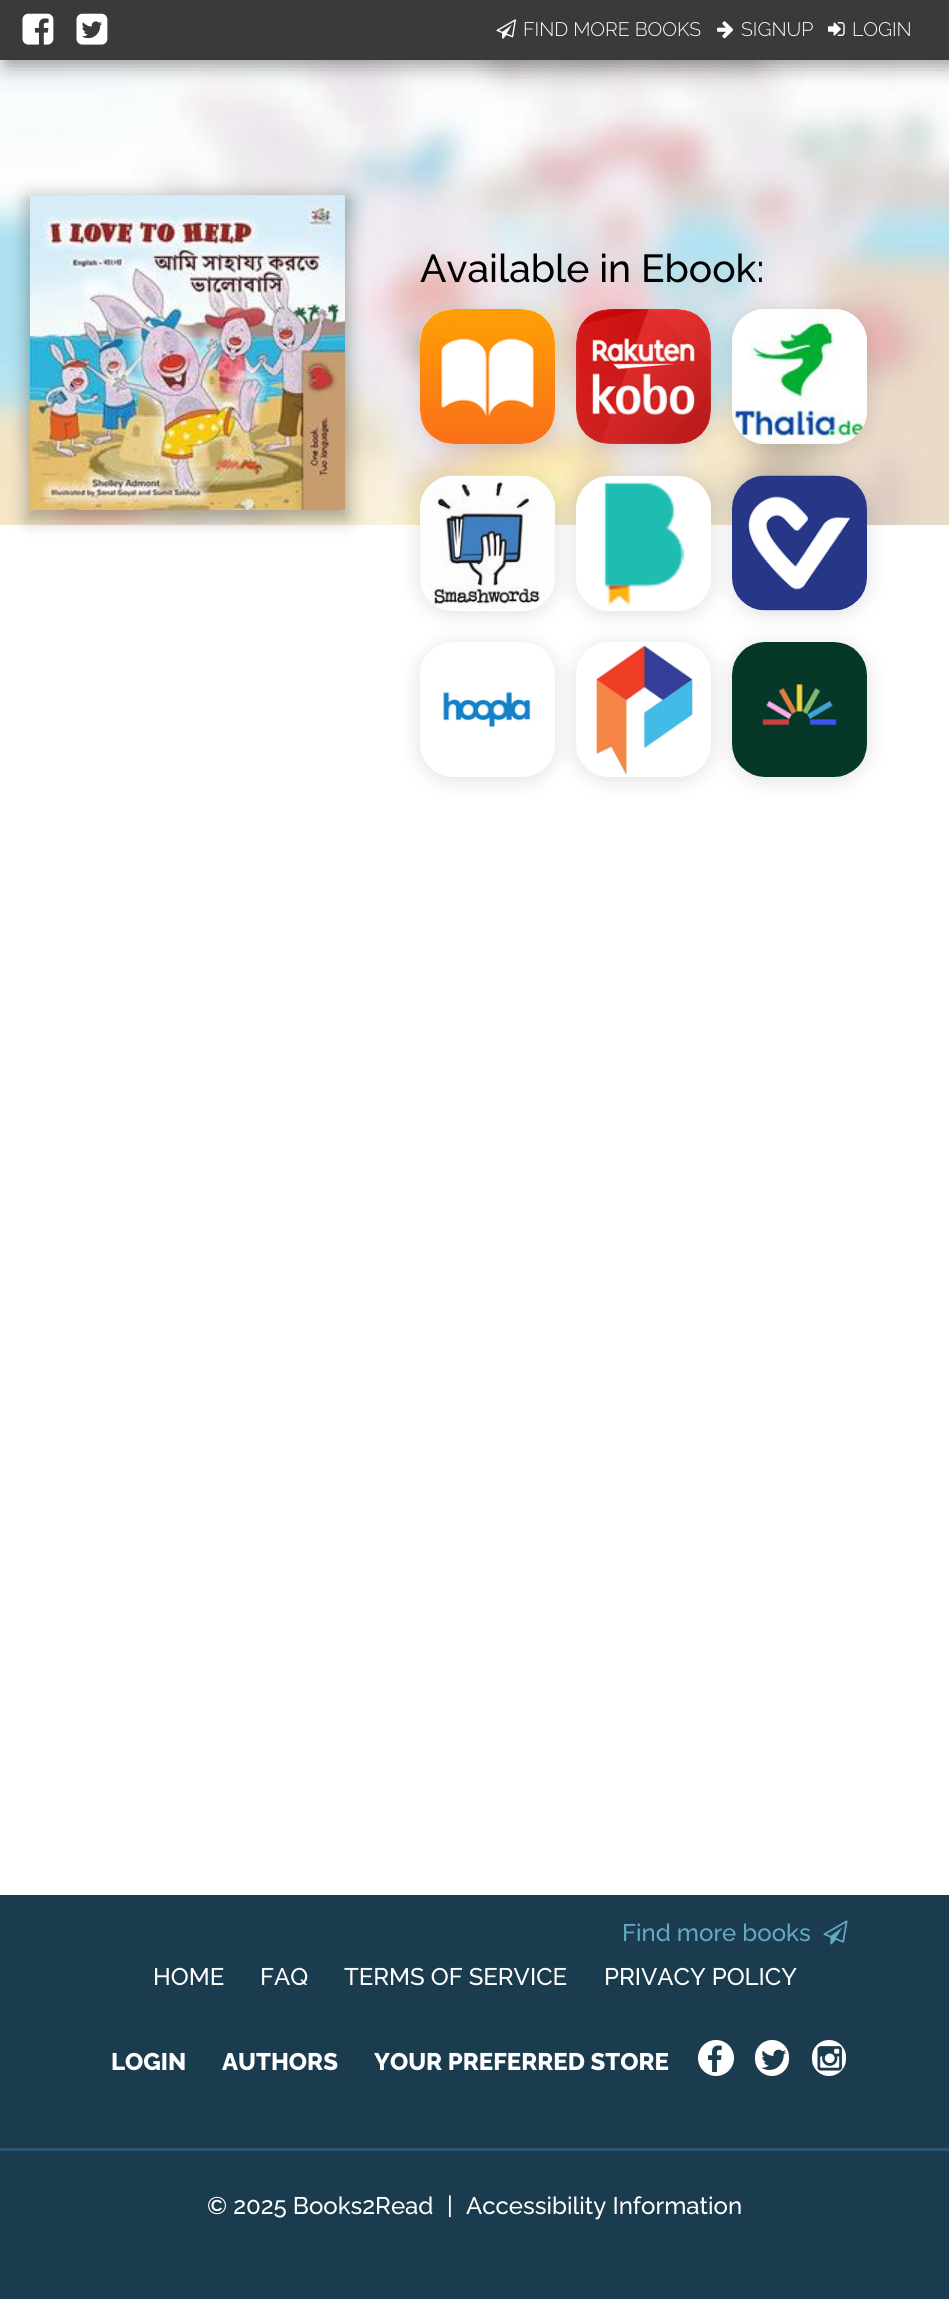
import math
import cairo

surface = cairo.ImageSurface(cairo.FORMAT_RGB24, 949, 2299)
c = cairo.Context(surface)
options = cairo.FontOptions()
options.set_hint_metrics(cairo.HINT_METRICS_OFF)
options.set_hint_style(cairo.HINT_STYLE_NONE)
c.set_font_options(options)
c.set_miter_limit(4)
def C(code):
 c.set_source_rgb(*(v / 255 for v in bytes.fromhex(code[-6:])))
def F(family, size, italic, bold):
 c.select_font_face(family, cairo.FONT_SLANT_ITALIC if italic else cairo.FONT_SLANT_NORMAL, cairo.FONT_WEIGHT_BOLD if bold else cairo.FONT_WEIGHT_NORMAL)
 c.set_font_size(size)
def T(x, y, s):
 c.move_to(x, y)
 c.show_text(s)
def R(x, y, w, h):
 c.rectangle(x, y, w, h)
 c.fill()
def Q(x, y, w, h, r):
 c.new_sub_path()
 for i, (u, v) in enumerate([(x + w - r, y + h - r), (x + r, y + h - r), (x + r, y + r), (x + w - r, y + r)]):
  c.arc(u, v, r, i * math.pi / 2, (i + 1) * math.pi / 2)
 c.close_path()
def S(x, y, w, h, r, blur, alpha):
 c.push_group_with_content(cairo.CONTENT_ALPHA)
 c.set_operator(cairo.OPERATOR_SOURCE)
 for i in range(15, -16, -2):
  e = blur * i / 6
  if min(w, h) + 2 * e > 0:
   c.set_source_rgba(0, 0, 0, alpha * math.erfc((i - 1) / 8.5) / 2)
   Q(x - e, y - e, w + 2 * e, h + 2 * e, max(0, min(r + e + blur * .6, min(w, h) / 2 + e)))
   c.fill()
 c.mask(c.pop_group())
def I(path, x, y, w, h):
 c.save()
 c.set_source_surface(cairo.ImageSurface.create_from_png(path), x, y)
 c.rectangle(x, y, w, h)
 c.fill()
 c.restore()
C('ffffff')
c.paint()
I('1.png',0,60,949,465)
C('000000')
S(6,6,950,60,0,10.5,.4)
C('3a3a3a')
R(0,0,949,60)
I('2.png',22,13,32,32)
I('3.png',76,13,32,32)
I('4.png',496,19,20,20)
F('Raleway Light',19.5,0,0)
C('ffffff')
T(523,36,'FIND MORE BOOKS')
I('5.png',717,21,16,18)
T(741,36,'SIGNUP')
I('6.png',828,22,17,14)
T(852,36,'LOGIN')
C('000000')
S(27,198,321,321,0,9,.3)
I('7.png',30,195,315,315)
S(417,309,141,141,36,9,.1)
C('ffffff')
Q(420,309,135,135,33)
c.fill()
I('8.png',420,309,135,135)
C('000000')
S(573,309,141,141,36,9,.1)
C('ffffff')
Q(576,309,135,135,33)
c.fill()
I('9.png',576,309,135,135)
C('000000')
S(729,309,141,141,36,9,.1)
F('Raleway Medium',39,0,0)
C('000000')
T(420,282,'Available in Ebook:')
C('ffffff')
Q(732,309,135,135,33)
c.fill()
I('10.png',732,309,135,135)
C('000000')
S(417,476,141,141,36,9,.1)
C('ffffff')
Q(420,476,135,135,33)
c.fill()
I('11.png',420,475,135,135)
C('000000')
S(573,476,141,141,36,9,.1)
C('ffffff')
Q(576,476,135,135,33)
c.fill()
C('000000')
S(729,476,141,141,36,9,.1)
C('ffffff')
Q(732,476,135,135,33)
c.fill()
I('12.png',732,475,135,136)
I('13.png',604,481,81,125)
C('000000')
S(417,642,141,141,36,9,.1)
C('ffffff')
Q(420,642,135,135,33)
c.fill()
C('000000')
S(573,642,141,141,36,9,.1)
C('ffffff')
Q(576,642,135,135,33)
c.fill()
C('000000')
S(729,642,141,141,36,9,.1)
C('ffffff')
Q(732,642,135,135,33)
c.fill()
I('14.png',443,691,88,37)
I('15.png',596,645,97,130)
I('16.png',732,642,135,135)
C('1b3b4f')
R(0,1895,949,404)
F('Raleway Medium',24,0,0)
C('63aac5')
T(622,1941,'Find more books')
I('17.png',823,1920,25,25)
C('ffffff')
T(153,1985,'HOME')
T(260,1985,'FAQ')
T(344,1985,'TERMS OF SERVICE')
T(604,1985,'PRIVACY POLICY')
F('Raleway ExtraBold',24,0,0)
T(111,2070,'LOGIN')
T(222,2070,'AUTHORS')
T(374,2070,'YOUR PREFERRED STORE')
c.new_path()
c.arc(716,2058,18,0,2 * math.pi)
c.fill()
I('18.png',708,2045,14,28)
Q(755,2040,34,36,17)
c.fill()
I('19.png',761,2049,26,21)
Q(812,2040,34,36,17)
c.fill()
I('20.png',817,2046,25,25)
C('285775')
R(0,2148,949,3)
F('Raleway Medium',24,0,0)
C('ffffff')
T(207,2214,'© 2025 Books2Read')
T(447,2214,'|')
T(466,2214,'Accessibility Information')
surface.write_to_png('o.png')
